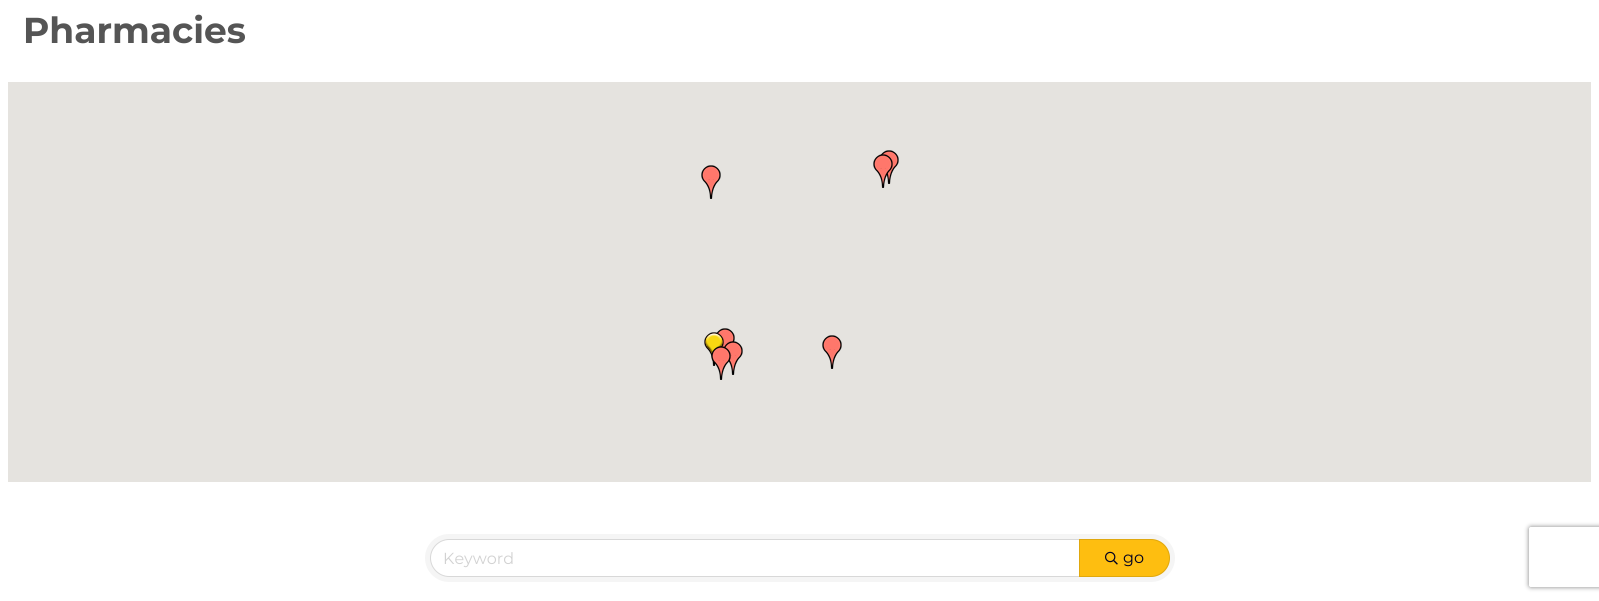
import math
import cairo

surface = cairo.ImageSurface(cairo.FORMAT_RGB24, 1599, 601)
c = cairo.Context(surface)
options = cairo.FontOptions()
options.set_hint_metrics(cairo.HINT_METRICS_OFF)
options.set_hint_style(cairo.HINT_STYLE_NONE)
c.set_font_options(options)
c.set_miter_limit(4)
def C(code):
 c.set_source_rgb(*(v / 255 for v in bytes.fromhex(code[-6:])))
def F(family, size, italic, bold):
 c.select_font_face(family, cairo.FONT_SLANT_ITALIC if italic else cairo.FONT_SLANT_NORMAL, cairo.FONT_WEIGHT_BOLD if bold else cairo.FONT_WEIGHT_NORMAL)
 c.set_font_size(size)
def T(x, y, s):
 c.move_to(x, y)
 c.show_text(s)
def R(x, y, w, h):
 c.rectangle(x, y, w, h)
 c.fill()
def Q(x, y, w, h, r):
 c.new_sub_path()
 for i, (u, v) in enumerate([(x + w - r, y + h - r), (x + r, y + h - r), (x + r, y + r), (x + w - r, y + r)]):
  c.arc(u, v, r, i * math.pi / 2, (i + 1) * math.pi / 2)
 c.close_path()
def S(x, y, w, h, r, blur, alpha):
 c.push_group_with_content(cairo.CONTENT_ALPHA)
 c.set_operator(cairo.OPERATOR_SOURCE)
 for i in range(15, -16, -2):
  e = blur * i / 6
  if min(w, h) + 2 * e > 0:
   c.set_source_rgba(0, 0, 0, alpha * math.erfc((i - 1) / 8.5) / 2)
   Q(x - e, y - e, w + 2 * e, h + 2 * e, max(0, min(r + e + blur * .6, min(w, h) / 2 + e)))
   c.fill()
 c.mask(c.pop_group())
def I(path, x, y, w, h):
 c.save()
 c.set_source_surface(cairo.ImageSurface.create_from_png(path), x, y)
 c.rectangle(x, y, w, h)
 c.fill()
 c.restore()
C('ffffff')
c.paint()
F('Montserrat',36,0,1)
C('555555')
T(23,43,'Pharmacies')
C('e5e3df')
R(8,82,1583,400)
I('1.png',880,150,19,34)
I('2.png',701,165,20,34)
I('3.png',873,154,20,34)
I('5.png',716,328,19,20)
I('4.png',704,332,20,34)
I('2.png',822,335,20,34)
I('7.png',724,341,19,34)
I('6.png',711,346,20,34)
C('f5f5f5')
Q(425,534,750,48,24)
c.fill()
C('ffffff')
c.new_path()
c.move_to(449,540)
c.line_to(1079,540)
c.line_to(1079,576)
c.line_to(449,576)
c.curve_to(439,576,431,568,431,558)
c.curve_to(431,548,439,540,449,540)
c.close_path()
c.fill()
c.new_path()
c.move_to(449,539.5)
c.line_to(1079.5,539.5)
c.line_to(1079.5,576.5)
c.line_to(449,576.5)
c.curve_to(439,576.5,430.5,568,430.5,558)
c.curve_to(430.5,548,439,539.5,449,539.5)
c.close_path()
c.set_source_rgba(0,0,0,0.12)
c.set_line_width(1)
c.stroke()
F('Montserrat',16,0,0)
C('d2d2d2')
T(443,564,'Keyword')
C('febe10')
c.new_path()
c.move_to(1079,539)
c.line_to(1151,539)
c.curve_to(1161.5,539,1170,547.5,1170,558)
c.curve_to(1170,568.5,1161.5,577,1151,577)
c.line_to(1079,577)
c.close_path()
c.fill()
c.new_path()
c.move_to(1079.5,539.5)
c.line_to(1151,539.5)
c.curve_to(1161,539.5,1169.5,548,1169.5,558)
c.curve_to(1169.5,568,1161,576.5,1151,576.5)
c.line_to(1079.5,576.5)
c.close_path()
c.set_source_rgba(0,0,0,0.12)
c.stroke()
I('8.png',1105,551,13,14)
C('000022')
T(1123,563,'go')
c.save()
c.set_fill_rule(cairo.FILL_RULE_EVEN_ODD)
c.new_path()
c.move_to(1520,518)
c.line_to(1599,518)
c.line_to(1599,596)
c.line_to(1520,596)
c.close_path()
c.move_to(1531,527)
c.line_to(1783,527)
c.curve_to(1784,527,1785,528,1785,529)
c.line_to(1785,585)
c.curve_to(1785,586,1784,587,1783,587)
c.line_to(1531,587)
c.curve_to(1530,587,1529,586,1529,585)
c.line_to(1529,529)
c.curve_to(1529,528,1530,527,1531,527)
c.close_path()
c.clip()
C('808080')
S(1529,527,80,60,2,2.5,1)
c.restore()
surface.write_to_png('o.png')
